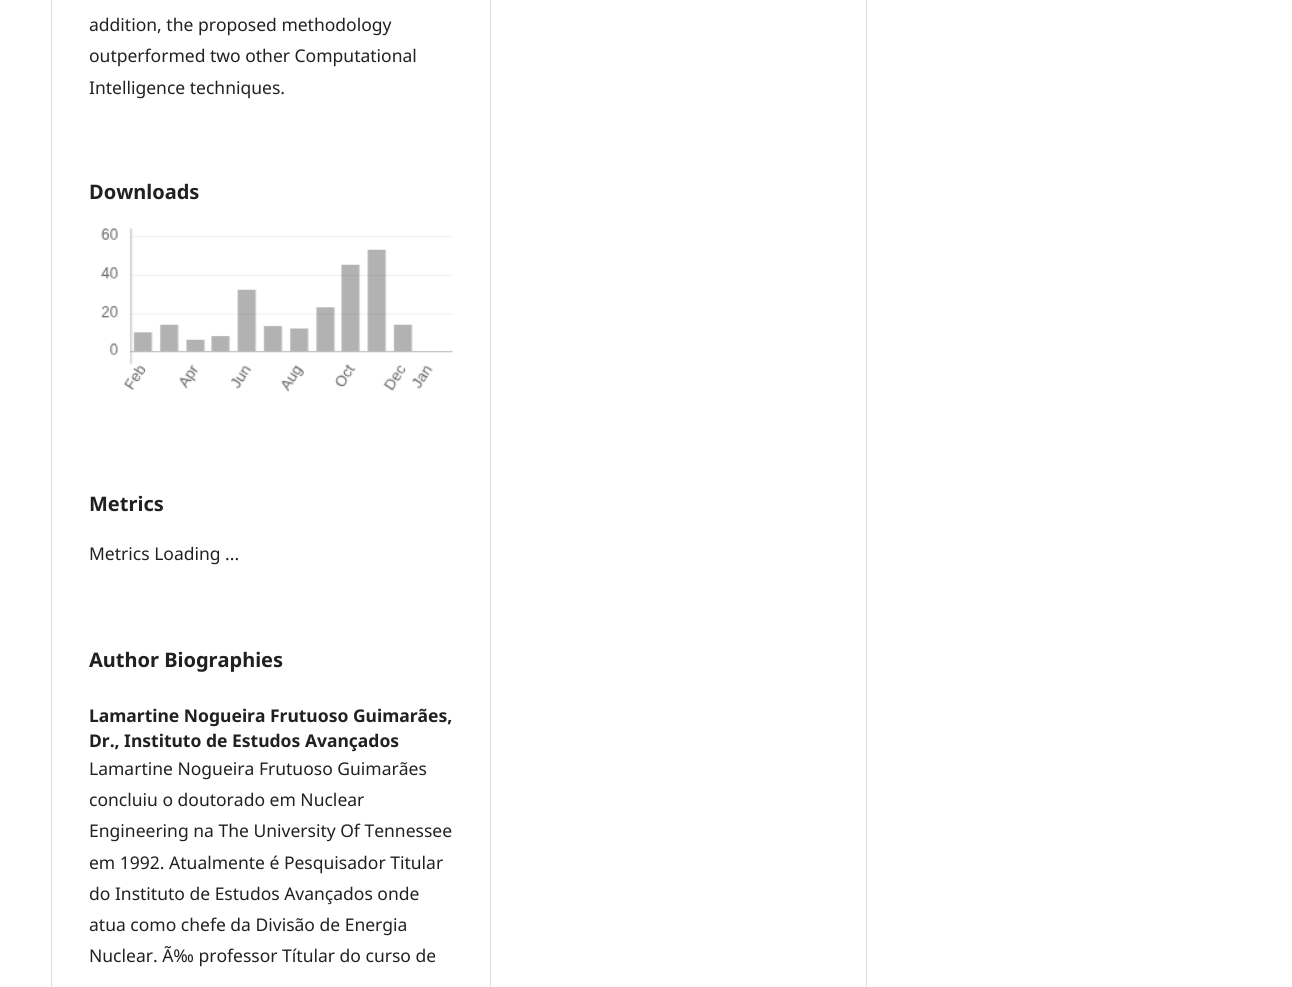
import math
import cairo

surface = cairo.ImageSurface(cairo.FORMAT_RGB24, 1292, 987)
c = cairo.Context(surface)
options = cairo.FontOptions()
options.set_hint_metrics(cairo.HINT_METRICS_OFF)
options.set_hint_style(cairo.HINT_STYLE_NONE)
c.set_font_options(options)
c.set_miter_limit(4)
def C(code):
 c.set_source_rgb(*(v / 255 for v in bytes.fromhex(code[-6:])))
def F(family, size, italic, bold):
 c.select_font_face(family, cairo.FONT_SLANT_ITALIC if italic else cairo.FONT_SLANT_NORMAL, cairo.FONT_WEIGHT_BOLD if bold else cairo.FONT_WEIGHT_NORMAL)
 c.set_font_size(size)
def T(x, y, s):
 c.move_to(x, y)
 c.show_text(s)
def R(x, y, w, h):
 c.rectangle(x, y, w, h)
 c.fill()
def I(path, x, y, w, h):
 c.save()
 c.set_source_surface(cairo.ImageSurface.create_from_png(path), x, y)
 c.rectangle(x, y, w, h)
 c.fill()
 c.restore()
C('ffffff')
c.paint()
C('dddddd')
R(51,0,1,987)
R(490,0,1,987)
F('Noto Sans',17.5,0,0)
C('212121')
T(89,31,'addition, the proposed methodology')
T(89,62,'outperformed two other Computational')
T(89,94,'Intelligence techniques.')
F('Noto Sans',20,0,1)
T(89,199,'Downloads')
I('1.png',101,228,352,164)
T(89,511,'Metrics')
F('Noto Sans',17.5,0,0)
T(89,560,'Metrics Loading ...')
F('Noto Sans',20,0,1)
T(89,667,'Author Biographies')
F('Noto Sans',17.5,0,1)
T(89,722,'Lamartine Nogueira Frutuoso Guimarães,')
T(89,747,'Dr., Instituto de Estudos Avançados')
F('Noto Sans',17.5,0,0)
T(89,775,'Lamartine Nogueira Frutuoso Guimarães')
T(89,806,'concluiu o doutorado em Nuclear')
T(89,837,'Engineering na The University Of Tennessee')
T(89,869,'em 1992. Atualmente é Pesquisador Titular')
T(89,900,'do Instituto de Estudos Avançados onde')
T(89,931,'atua como chefe da Divisão de Energia')
T(89,962,'Nuclear. Ã‰ professor Títular do curso de')
C('dddddd')
R(866,0,1,987)
surface.write_to_png('o.png')
